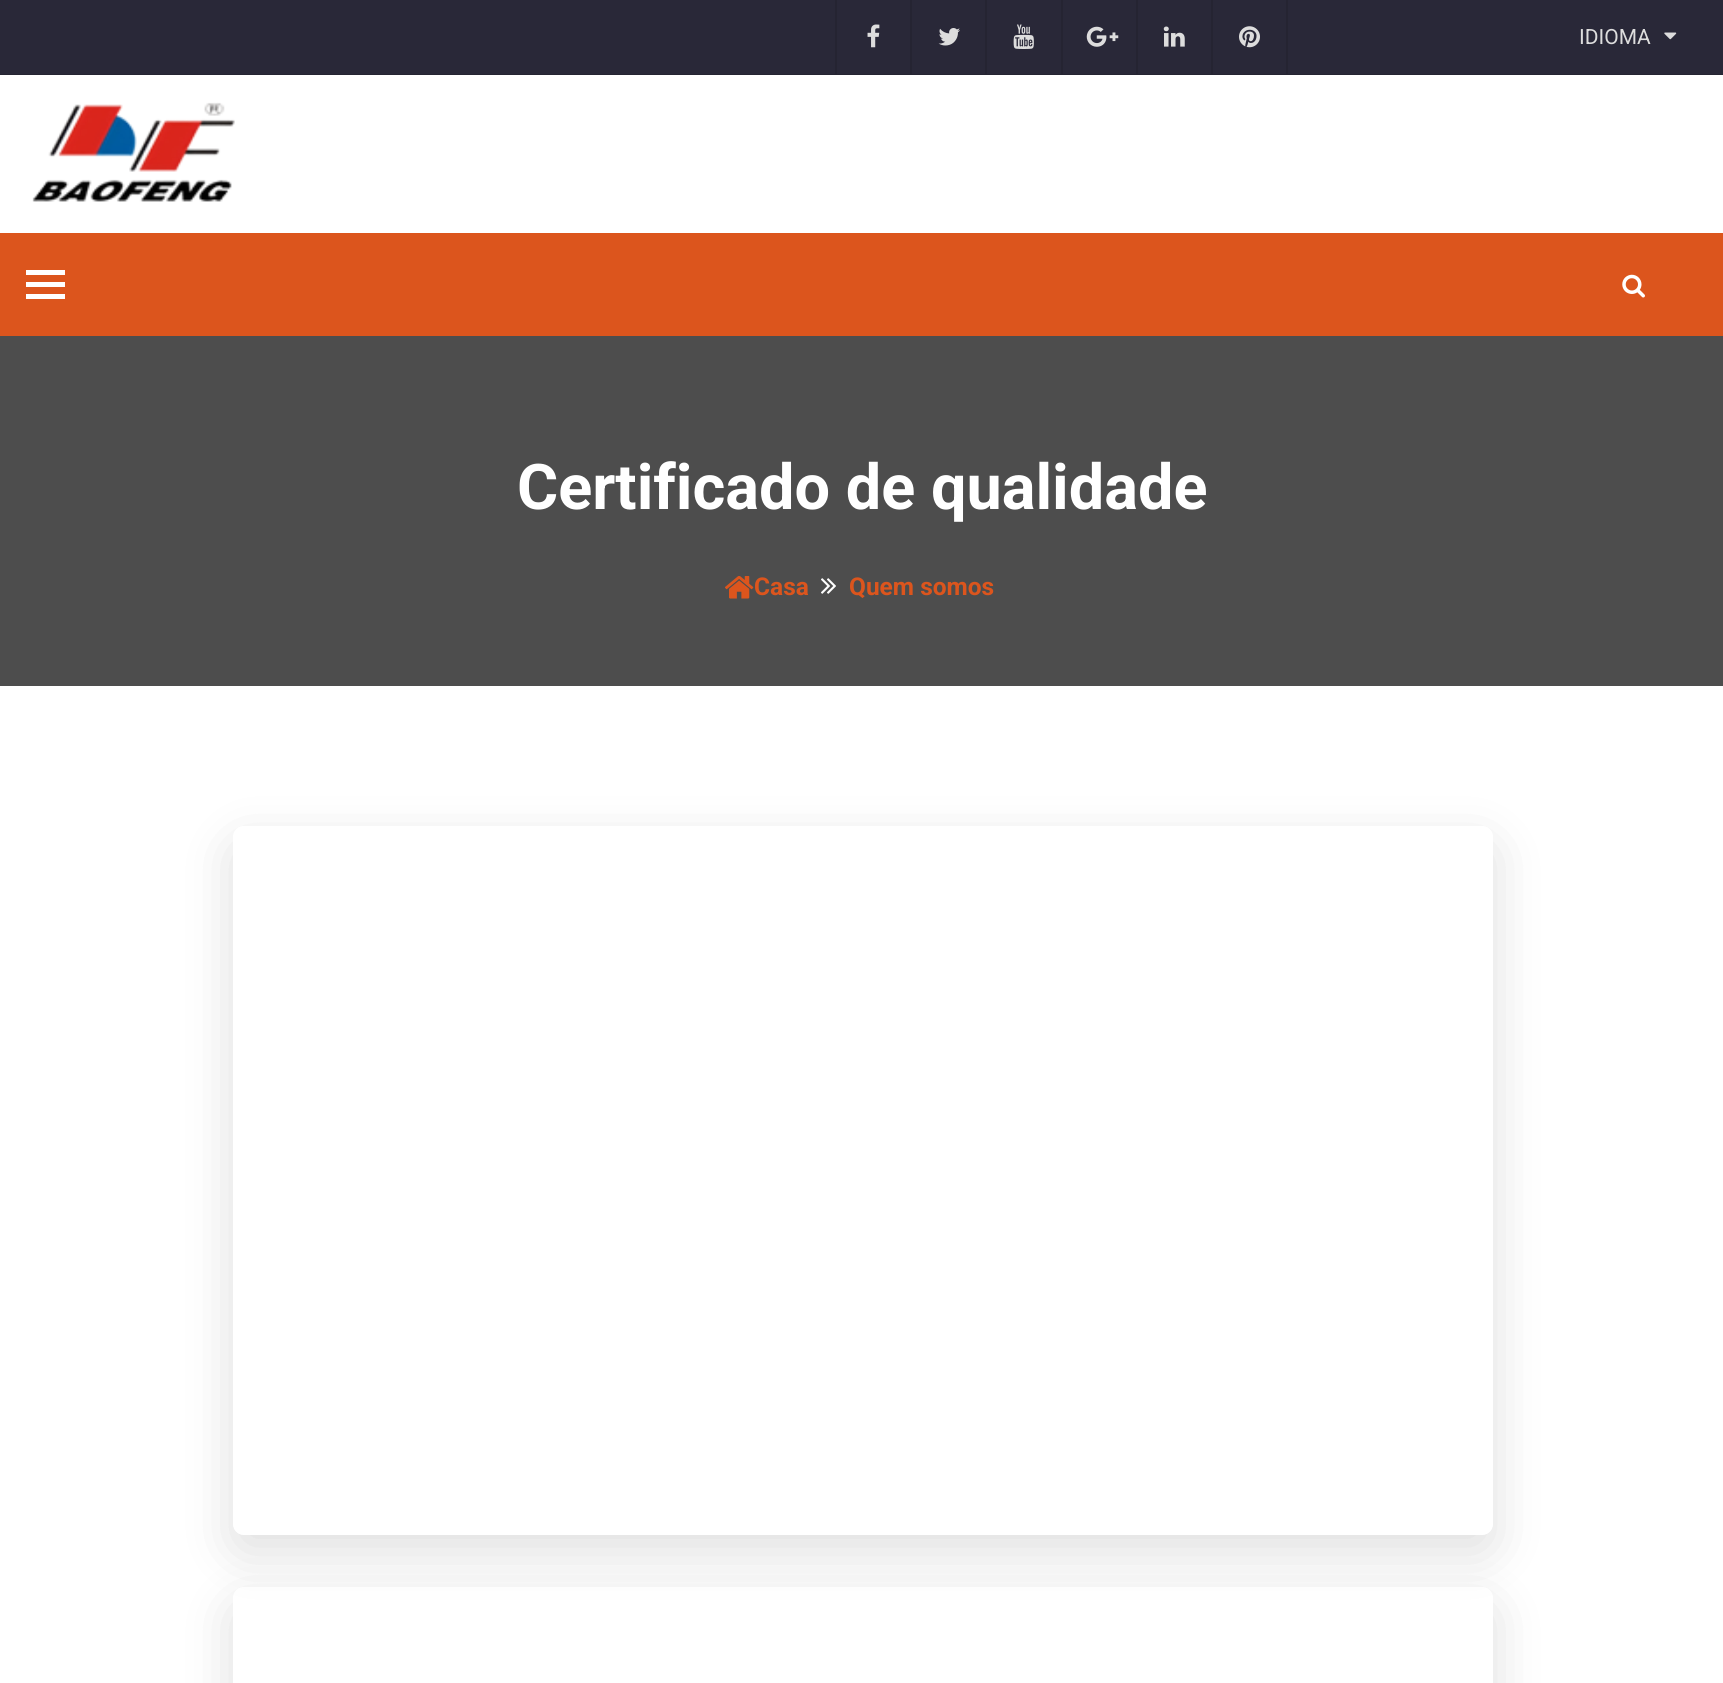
import math
import cairo

surface = cairo.ImageSurface(cairo.FORMAT_RGB24, 1723, 1683)
c = cairo.Context(surface)
options = cairo.FontOptions()
options.set_hint_metrics(cairo.HINT_METRICS_OFF)
options.set_hint_style(cairo.HINT_STYLE_NONE)
c.set_font_options(options)
c.set_miter_limit(4)
def C(code):
 c.set_source_rgb(*(v / 255 for v in bytes.fromhex(code[-6:])))
def F(family, size, italic, bold):
 c.select_font_face(family, cairo.FONT_SLANT_ITALIC if italic else cairo.FONT_SLANT_NORMAL, cairo.FONT_WEIGHT_BOLD if bold else cairo.FONT_WEIGHT_NORMAL)
 c.set_font_size(size)
def T(x, y, s):
 c.move_to(x, y)
 c.show_text(s)
def R(x, y, w, h):
 c.rectangle(x, y, w, h)
 c.fill()
def Q(x, y, w, h, r):
 c.new_sub_path()
 for i, (u, v) in enumerate([(x + w - r, y + h - r), (x + r, y + h - r), (x + r, y + r), (x + w - r, y + r)]):
  c.arc(u, v, r, i * math.pi / 2, (i + 1) * math.pi / 2)
 c.close_path()
def S(x, y, w, h, r, blur, alpha):
 c.push_group_with_content(cairo.CONTENT_ALPHA)
 c.set_operator(cairo.OPERATOR_SOURCE)
 for i in range(15, -16, -2):
  e = blur * i / 6
  if min(w, h) + 2 * e > 0:
   c.set_source_rgba(0, 0, 0, alpha * math.erfc((i - 1) / 8.5) / 2)
   Q(x - e, y - e, w + 2 * e, h + 2 * e, max(0, min(r + e + blur * .6, min(w, h) / 2 + e)))
   c.fill()
 c.mask(c.pop_group())
def I(path, x, y, w, h):
 c.save()
 c.set_source_surface(cairo.ImageSurface.create_from_png(path), x, y)
 c.rectangle(x, y, w, h)
 c.fill()
 c.restore()
C('ffffff')
c.paint()
C('292838')
R(0,0,1723,74)
C('252432')
R(0,74,1723,1)
R(1286,0,2,74)
R(835,0,2,74)
I('1.png',867,24,13,24)
R(910,0,2,74)
I('2.png',938,28,22,18)
R(985,0,2,74)
I('3.png',1013,24,21,25)
R(1061,0,2,74)
I('4.png',1086,26,33,21)
R(1136,0,2,74)
I('5.png',1163,26,22,21)
R(1211,0,2,74)
I('6.png',1239,26,21,22)
F('Roboto',21,0,0)
C('dddddd')
T(1579,44,'IDIOMA')
I('7.png',1664,32,13,8)
I('8.png',32,102,203,100)
C('dc551d')
R(0,233,1723,103)
C('ffffff')
R(26,270,39,5)
R(26,282,39,5)
R(26,294,39,5)
I('9.png',1622,274,23,24)
C('4d4d4d')
R(0,336,1723,350)
F('Roboto',63,0,1)
C('ffffff')
T(517,509,'Certificado de qualidade')
I('10.png',725,576,29,23)
F('Roboto',24.5,0,1)
C('dc551d')
T(754,595,'Casa')
I('11.png',821,578,15,16)
T(849,595,'Quem somos')
c.save()
c.set_fill_rule(cairo.FILL_RULE_EVEN_ODD)
c.new_path()
c.move_to(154,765)
c.line_to(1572,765)
c.line_to(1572,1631)
c.line_to(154,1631)
c.close_path()
c.move_to(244,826)
c.line_to(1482,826)
c.curve_to(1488,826,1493,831,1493,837)
c.line_to(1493,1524)
c.curve_to(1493,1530,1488,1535,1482,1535)
c.line_to(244,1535)
c.curve_to(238,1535,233,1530,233,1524)
c.line_to(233,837)
c.curve_to(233,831,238,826,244,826)
c.close_path()
c.clip()
C('323232')
S(233,844,1260,708,11,26,.16)
c.restore()
c.save()
c.set_fill_rule(cairo.FILL_RULE_EVEN_ODD)
c.new_path()
c.move_to(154,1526)
c.line_to(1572,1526)
c.line_to(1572,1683)
c.line_to(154,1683)
c.close_path()
c.move_to(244,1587)
c.line_to(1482,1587)
c.curve_to(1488,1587,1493,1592,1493,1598)
c.line_to(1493,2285)
c.curve_to(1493,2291,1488,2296,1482,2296)
c.line_to(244,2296)
c.curve_to(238,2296,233,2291,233,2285)
c.line_to(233,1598)
c.curve_to(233,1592,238,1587,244,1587)
c.close_path()
c.clip()
C('323232')
S(233,1605,1260,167,11,26,.16)
c.restore()
surface.write_to_png('o.png')
